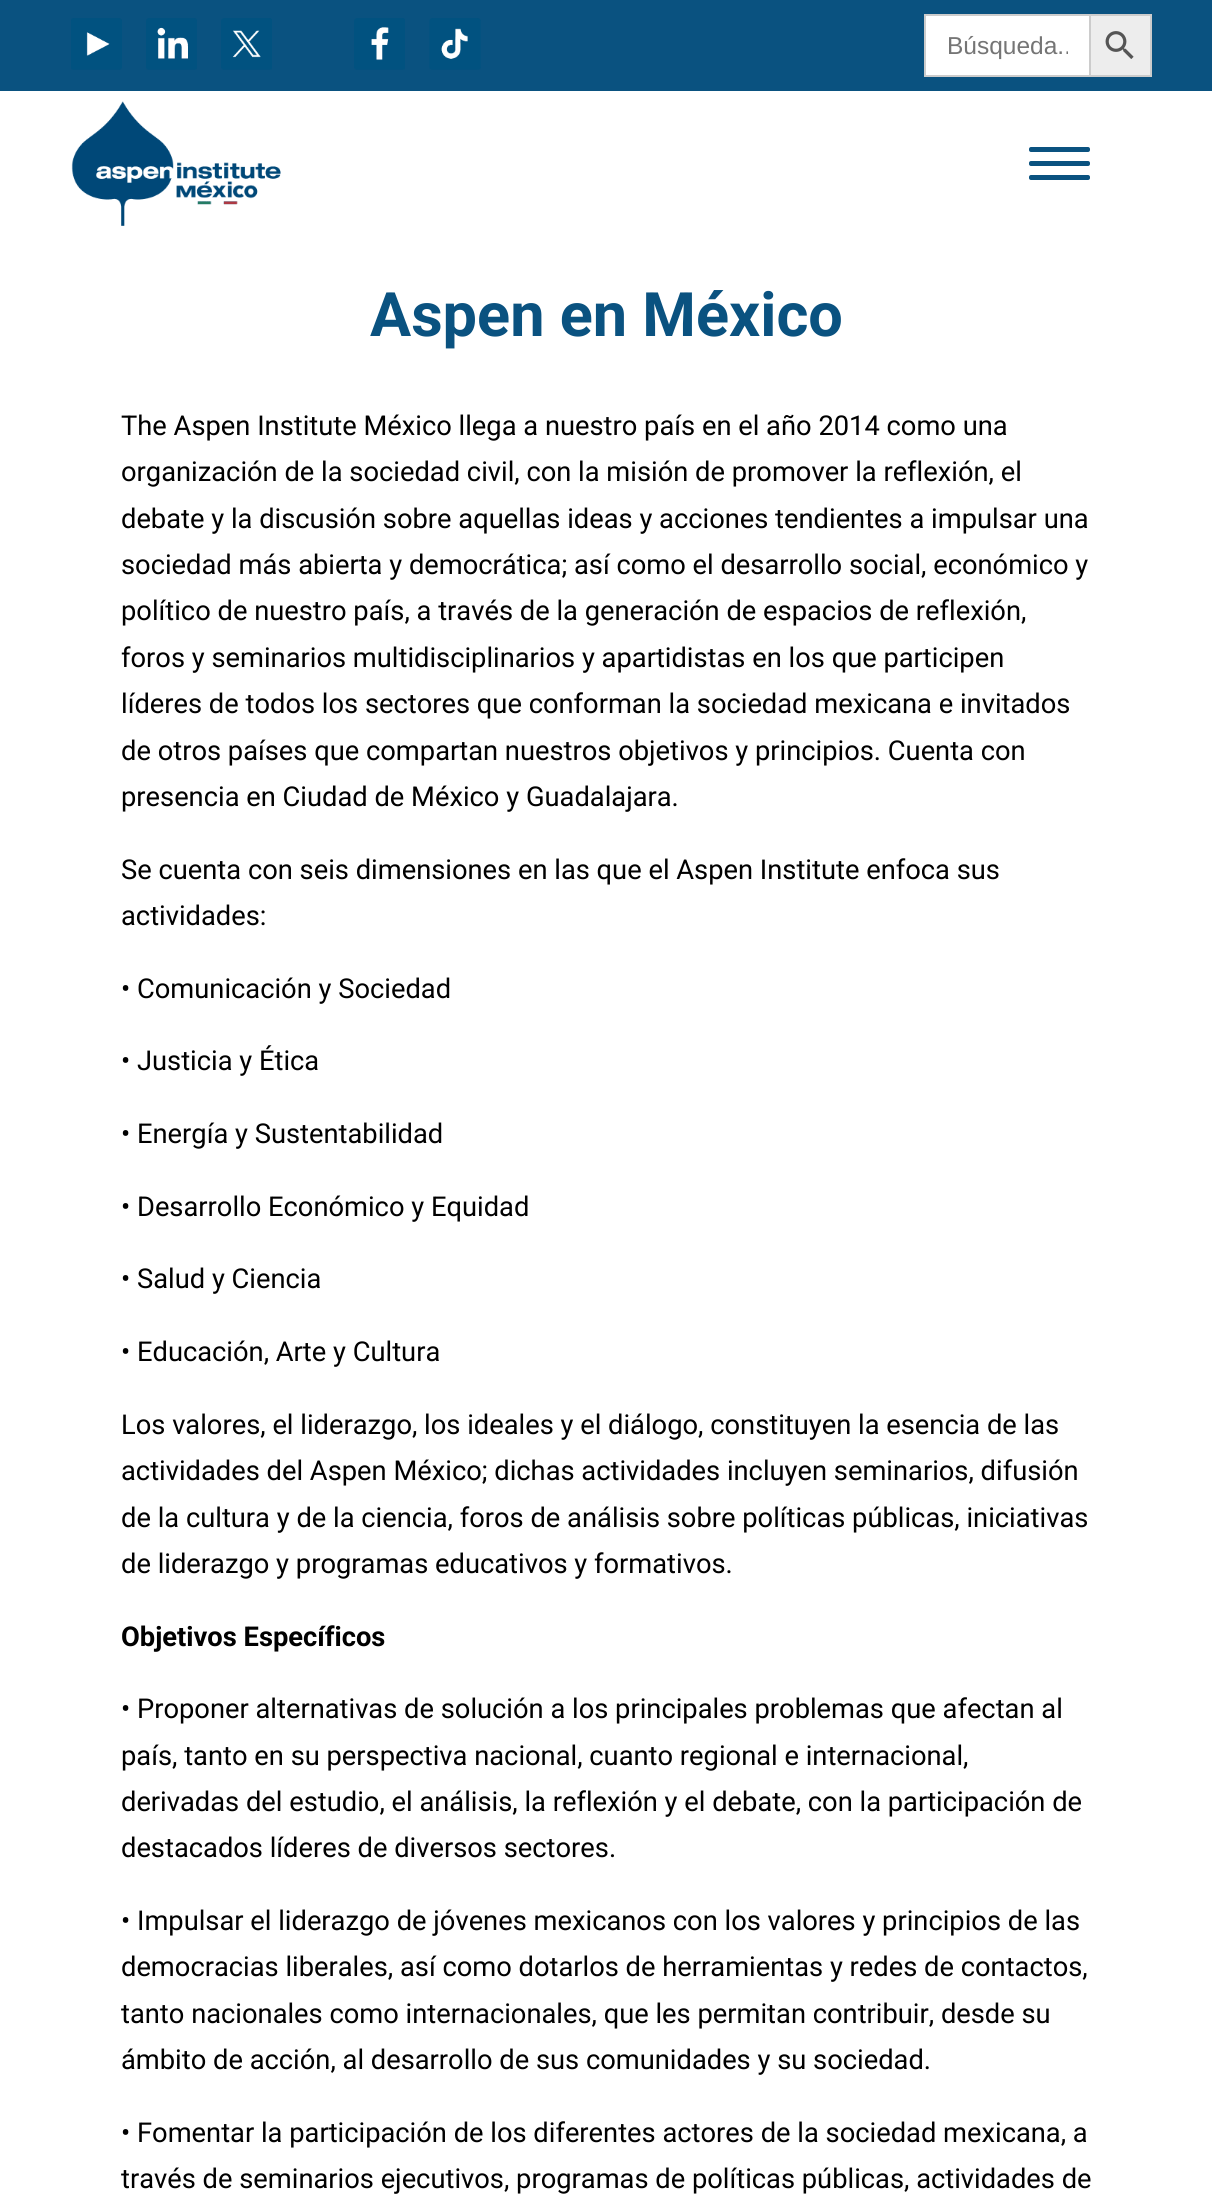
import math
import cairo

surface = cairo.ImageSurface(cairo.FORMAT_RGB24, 1212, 2196)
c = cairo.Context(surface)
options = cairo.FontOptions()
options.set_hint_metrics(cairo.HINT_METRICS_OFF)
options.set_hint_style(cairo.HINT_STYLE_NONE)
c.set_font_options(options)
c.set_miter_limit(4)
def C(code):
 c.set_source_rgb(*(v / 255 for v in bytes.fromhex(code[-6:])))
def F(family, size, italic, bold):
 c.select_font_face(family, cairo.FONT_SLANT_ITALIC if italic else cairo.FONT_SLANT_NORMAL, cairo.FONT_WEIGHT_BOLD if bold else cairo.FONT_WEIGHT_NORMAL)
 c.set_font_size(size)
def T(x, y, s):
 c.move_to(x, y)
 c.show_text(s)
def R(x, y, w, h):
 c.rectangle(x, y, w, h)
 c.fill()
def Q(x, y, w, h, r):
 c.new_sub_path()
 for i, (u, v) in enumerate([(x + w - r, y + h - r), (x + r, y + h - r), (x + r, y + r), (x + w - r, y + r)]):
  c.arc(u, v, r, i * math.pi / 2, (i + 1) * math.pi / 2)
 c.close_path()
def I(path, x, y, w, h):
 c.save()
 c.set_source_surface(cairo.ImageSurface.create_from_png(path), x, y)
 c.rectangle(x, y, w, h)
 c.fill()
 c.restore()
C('ffffff')
c.paint()
C('0a5280')
R(0,0,1212,91)
I('1.png',71,18,51,52)
I('2.png',146,18,51,52)
I('3.png',221,18,51,52)
I('4.png',354,18,51,52)
I('5.png',429,18,52,52)
C('ffffff')
R(926,16,163,59)
C('cccccc')
R(924,14,165,2)
R(924,75,165,2)
R(924,14,2,63)
c.save()
c.rectangle(947,32,121,28)
c.clip()
F('Liberation Sans',24.5,0,0)
C('757575')
T(947,54,'Búsqueda..')
c.restore()
C('ededed')
c.rectangle(1090,15,61,61)
c.fill_preserve()
C('cccccc')
c.stroke()
I('6.png',1105,31,29,28)
I('7.png',71,101,210,125)
C('0a5280')
Q(1029,147,61,5,2)
c.fill()
Q(1029,161,61,5,2)
c.fill()
Q(1029,175,61,5,2)
c.fill()
F('Roboto',61.25,0,1)
T(370,336,'Aspen en México')
F('Roboto',27.3,0,0)
C('000000')
T(121,435,'The Aspen Institute México llega a nuestro país en el año 2014 como una')
T(121,481,'organización de la sociedad civil, con la misión de promover la reflexión, el')
T(121,528,'debate y la discusión sobre aquellas ideas y acciones tendientes a impulsar una')
T(121,574,'sociedad más abierta y democrática; así como el desarrollo social, económico y')
T(121,620,'político de nuestro país, a través de la generación de espacios de reflexión,')
T(121,667,'foros y seminarios multidisciplinarios y apartidistas en los que participen')
T(121,713,'líderes de todos los sectores que conforman la sociedad mexicana e invitados')
T(121,760,'de otros países que compartan nuestros objetivos y principios. Cuenta con')
T(121,806,'presencia en Ciudad de México y Guadalajara.')
T(121,879,'Se cuenta con seis dimensiones en las que el Aspen Institute enfoca sus')
T(121,925,'actividades:')
T(121,998,'• Comunicación y Sociedad')
T(121,1070,'• Justicia y Ética')
T(121,1143,'• Energía y Sustentabilidad')
T(121,1216,'• Desarrollo Económico y Equidad')
T(121,1288,'• Salud y Ciencia')
T(121,1361,'• Educación, Arte y Cultura')
T(121,1434,'Los valores, el liderazgo, los ideales y el diálogo, constituyen la esencia de las')
T(121,1480,'actividades del Aspen México; dichas actividades incluyen seminarios, difusión')
T(121,1527,'de la cultura y de la ciencia, foros de análisis sobre políticas públicas, iniciativas')
T(121,1573,'de liderazgo y programas educativos y formativos.')
F('Roboto',27.3,0,1)
T(121,1646,'Objetivos Específicos')
F('Roboto',27.3,0,0)
T(121,1718,'• Proponer alternativas de solución a los principales problemas que afectan al')
T(121,1765,'país, tanto en su perspectiva nacional, cuanto regional e internacional,')
T(121,1811,'derivadas del estudio, el análisis, la reflexión y el debate, con la participación de')
T(121,1857,'destacados líderes de diversos sectores.')
T(121,1930,'• Impulsar el liderazgo de jóvenes mexicanos con los valores y principios de las')
T(121,1976,'democracias liberales, así como dotarlos de herramientas y redes de contactos,')
T(121,2023,'tanto nacionales como internacionales, que les permitan contribuir, desde su')
T(121,2069,'ámbito de acción, al desarrollo de sus comunidades y su sociedad.')
T(121,2142,'• Fomentar la participación de los diferentes actores de la sociedad mexicana, a')
T(121,2188,'través de seminarios ejecutivos, programas de políticas públicas, actividades de')
surface.write_to_png('o.png')
